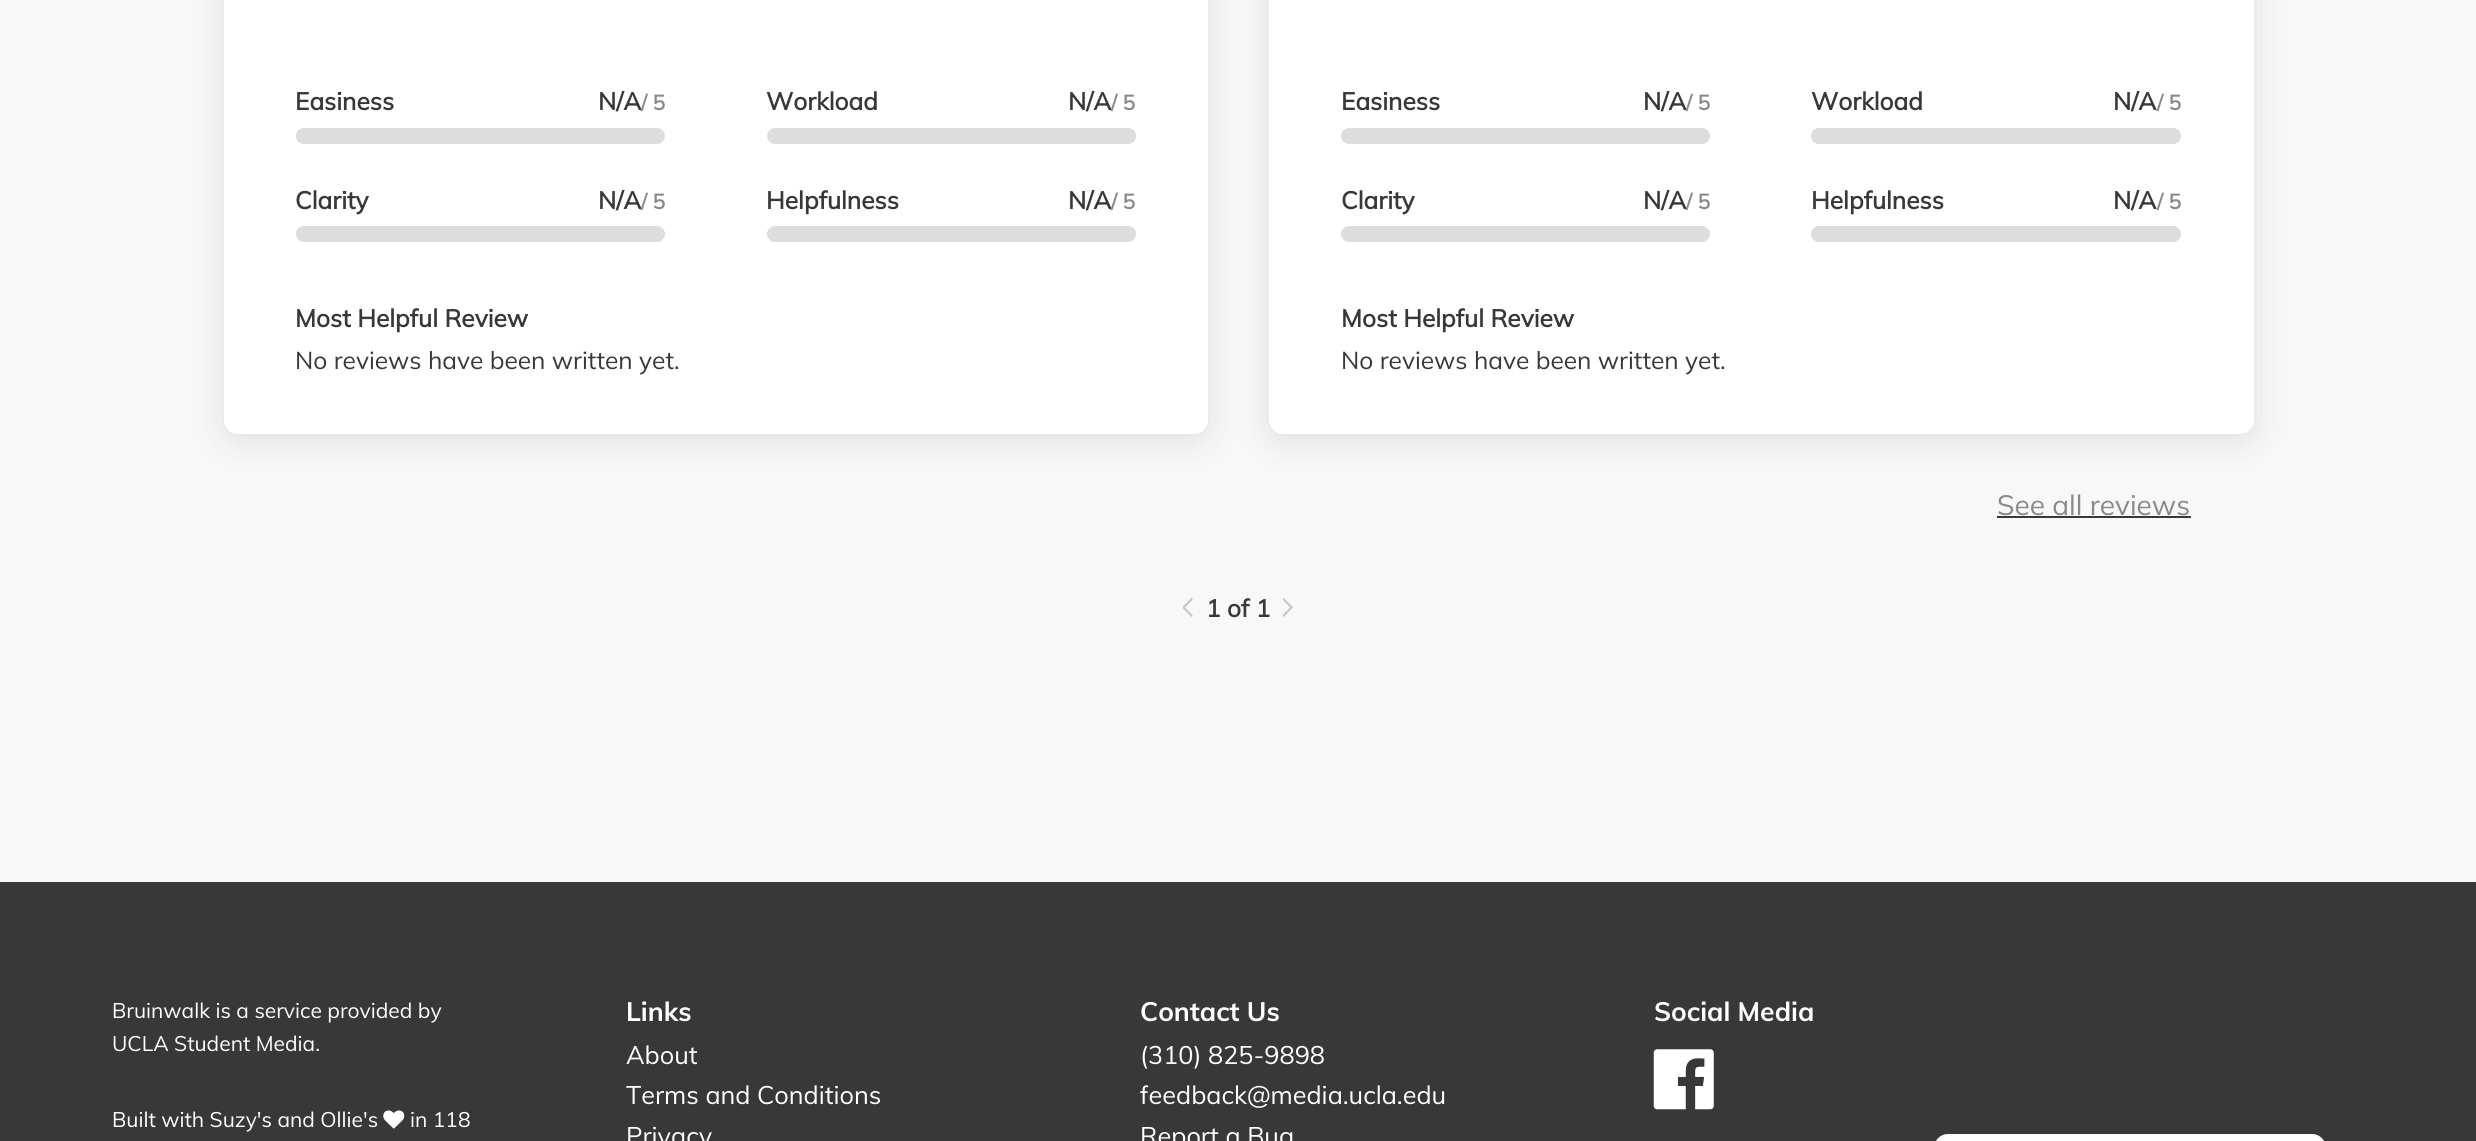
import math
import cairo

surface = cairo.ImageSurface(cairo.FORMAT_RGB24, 2476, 1141)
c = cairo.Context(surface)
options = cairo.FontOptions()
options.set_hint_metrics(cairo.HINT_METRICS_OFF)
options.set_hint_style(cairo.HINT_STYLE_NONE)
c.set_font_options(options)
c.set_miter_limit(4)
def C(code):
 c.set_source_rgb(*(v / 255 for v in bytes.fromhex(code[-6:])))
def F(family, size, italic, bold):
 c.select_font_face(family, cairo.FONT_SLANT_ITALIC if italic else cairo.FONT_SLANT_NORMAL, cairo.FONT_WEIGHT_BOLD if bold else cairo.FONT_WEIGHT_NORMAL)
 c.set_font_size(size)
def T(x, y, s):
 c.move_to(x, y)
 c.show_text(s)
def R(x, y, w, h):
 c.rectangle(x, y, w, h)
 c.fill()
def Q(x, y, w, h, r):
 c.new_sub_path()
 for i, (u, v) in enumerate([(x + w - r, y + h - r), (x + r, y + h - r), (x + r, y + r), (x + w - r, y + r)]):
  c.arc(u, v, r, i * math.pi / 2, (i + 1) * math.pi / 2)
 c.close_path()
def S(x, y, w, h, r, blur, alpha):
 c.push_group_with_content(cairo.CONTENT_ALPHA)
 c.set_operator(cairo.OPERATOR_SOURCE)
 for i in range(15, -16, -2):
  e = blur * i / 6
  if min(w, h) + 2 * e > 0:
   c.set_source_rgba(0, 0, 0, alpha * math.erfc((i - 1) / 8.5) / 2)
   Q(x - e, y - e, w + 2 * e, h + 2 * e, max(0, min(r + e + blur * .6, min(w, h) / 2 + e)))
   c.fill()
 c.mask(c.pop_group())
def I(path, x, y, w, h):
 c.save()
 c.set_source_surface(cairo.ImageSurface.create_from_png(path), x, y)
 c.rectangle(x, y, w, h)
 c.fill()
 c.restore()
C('f8f8f8')
c.paint()
C('000000')
S(224,-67,984,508,14,17.5,.1)
C('ffffff')
Q(224,-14,984,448,14)
c.fill()
C('000000')
S(1269,-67,985,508,14,17.5,.1)
C('ffffff')
Q(1269,-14,985,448,14)
c.fill()
F('Mulish',24.5,0,1)
C('383838')
T(295,110,'Easiness')
T(598,110,'N/A')
F('Mulish',21,0,1)
C('898989')
T(641,110,'/ 5')
C('dddddd')
Q(296,128,369,16,8)
c.fill()
F('Mulish',24.5,0,1)
C('383838')
T(766,110,'Workload')
T(1068,110,'N/A')
F('Mulish',21,0,1)
C('898989')
T(1111,110,'/ 5')
C('dddddd')
Q(767,128,369,16,8)
c.fill()
F('Mulish',24.5,0,1)
C('383838')
T(295,209,'Clarity')
T(598,209,'N/A')
F('Mulish',21,0,1)
C('898989')
T(641,209,'/ 5')
C('dddddd')
Q(296,226,369,16,8)
c.fill()
F('Mulish',24.5,0,1)
C('383838')
T(766,209,'Helpfulness')
T(1068,209,'N/A')
F('Mulish',21,0,1)
C('898989')
T(1111,209,'/ 5')
C('dddddd')
Q(767,226,369,16,8)
c.fill()
F('Mulish',24.5,0,1)
C('383838')
T(295,327,'Most Helpful Review')
F('Mulish ExtraLight',24.5,0,0)
T(295,369,'No reviews have been written yet.')
F('Mulish',24.5,0,1)
T(1341,110,'Easiness')
T(1643,110,'N/A')
F('Mulish',21,0,1)
C('898989')
T(1686,110,'/ 5')
C('dddddd')
Q(1341,128,369,16,8)
c.fill()
F('Mulish',24.5,0,1)
C('383838')
T(1811,110,'Workload')
T(2113,110,'N/A')
F('Mulish',21,0,1)
C('898989')
T(2157,110,'/ 5')
C('dddddd')
Q(1811,128,370,16,8)
c.fill()
F('Mulish',24.5,0,1)
C('383838')
T(1341,209,'Clarity')
T(1643,209,'N/A')
F('Mulish',21,0,1)
C('898989')
T(1686,209,'/ 5')
C('dddddd')
Q(1341,226,369,16,8)
c.fill()
F('Mulish',24.5,0,1)
C('383838')
T(1811,209,'Helpfulness')
T(2113,209,'N/A')
F('Mulish',21,0,1)
C('898989')
T(2157,209,'/ 5')
C('dddddd')
Q(1811,226,370,16,8)
c.fill()
F('Mulish',24.5,0,1)
C('383838')
T(1341,327,'Most Helpful Review')
F('Mulish ExtraLight',24.5,0,0)
T(1341,369,'No reviews have been written yet.')
F('Mulish ExtraLight',28,0,0)
C('898989')
T(1997,515,'See all reviews')
C('383838')
R(1997,516,194,2)
I('1.png',1183,598,10,19)
F('Mulish',24.5,0,1)
T(1206,617,'1 of 1')
I('2.png',1282,598,11,19)
R(0,882,2476,259)
F('Muli',21,0,0)
C('ffffff')
T(112,1018,'Bruinwalk is a service provided by')
T(112,1051,'UCLA Student Media.')
T(112,1127,'Built with Suzy\'s and Ollie\'s')
I('3.png',383,1110,22,19)
T(410,1127,'in 118')
F('Muli',26.5,0,1)
T(626,1021,'Links')
F('Muli',25.25,0,0)
T(626,1064,'About')
T(626,1104,'Terms and Conditions')
T(626,1145,'Privacy')
F('Muli',26.5,0,1)
T(1140,1021,'Contact Us')
F('Muli',25.25,0,0)
T(1140,1064,'(310) 825-9898')
T(1140,1104,'feedback@media.ucla.edu')
T(1140,1145,'Report a Bug')
F('Muli',26.5,0,1)
T(1654,1021,'Social Media')
I('4.png',1653,1049,61,61)
Q(1934,1134,392,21,14)
c.fill()
surface.write_to_png('o.png')
